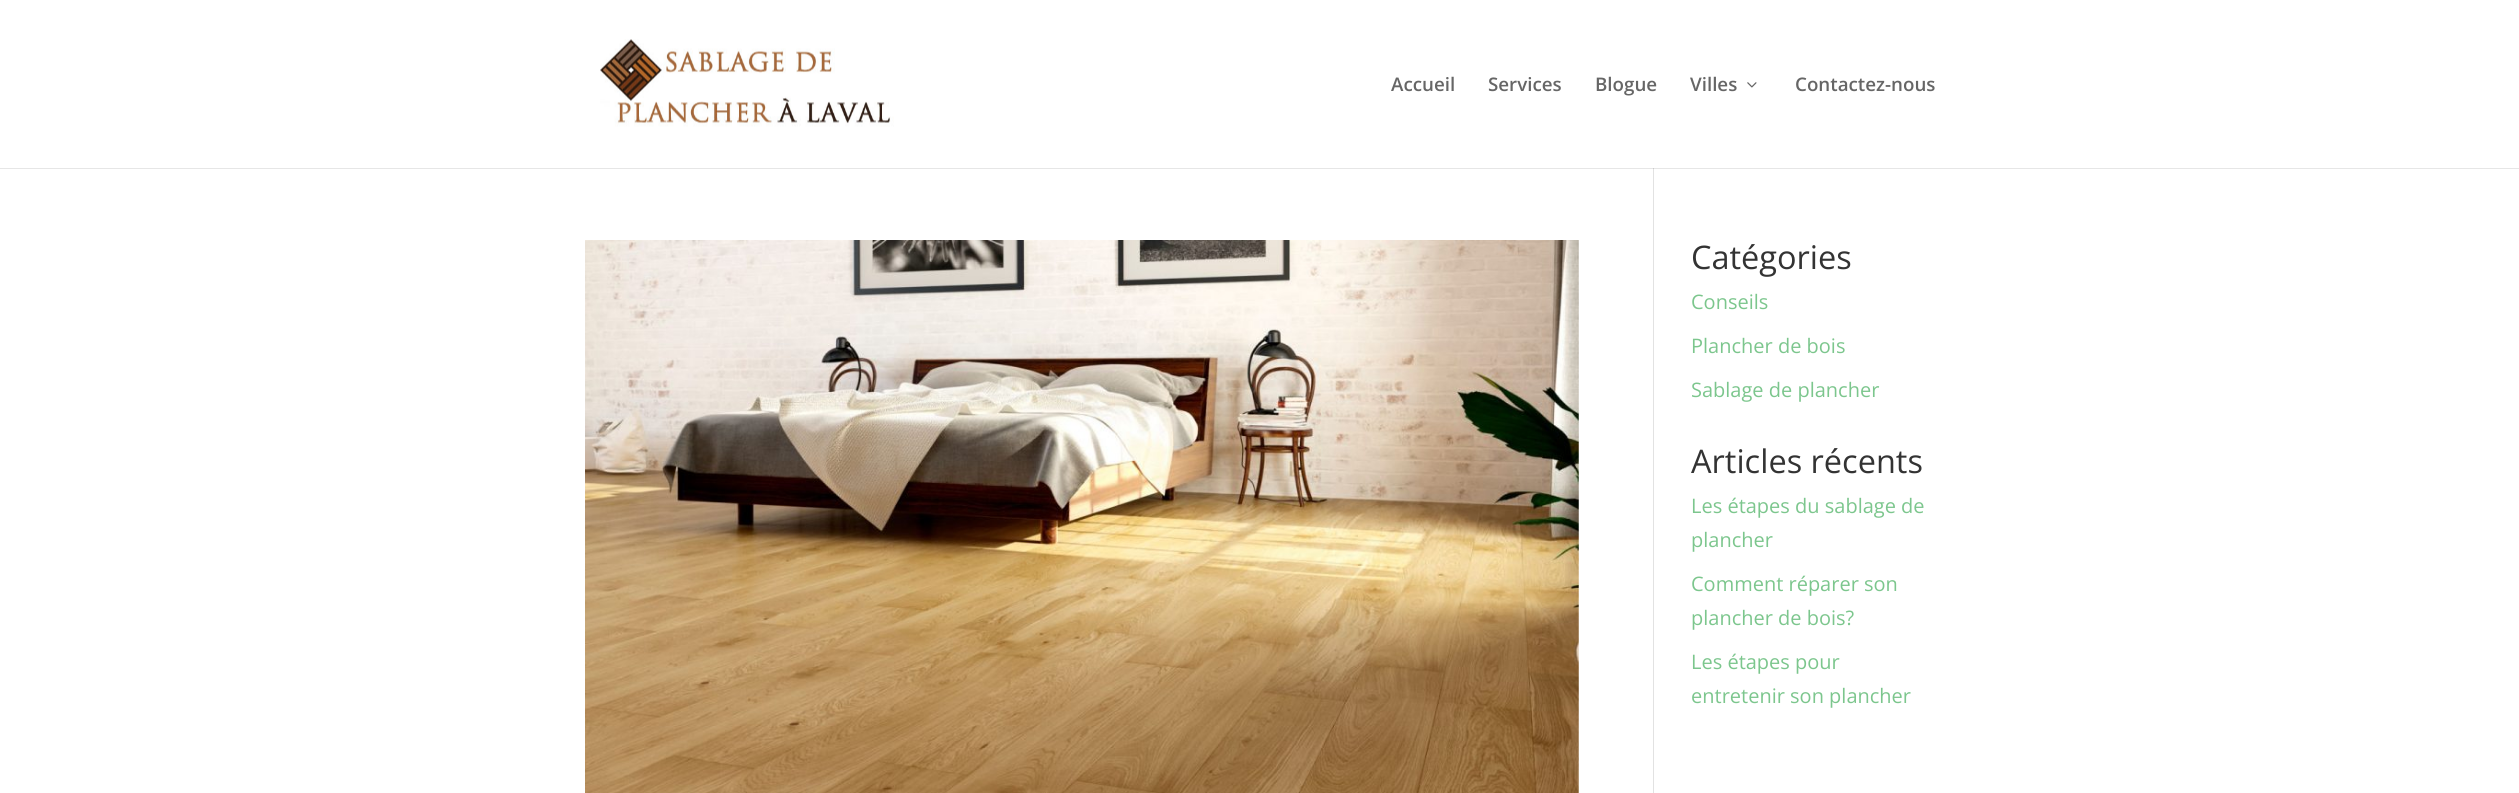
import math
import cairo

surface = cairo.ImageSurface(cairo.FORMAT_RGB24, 2519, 793)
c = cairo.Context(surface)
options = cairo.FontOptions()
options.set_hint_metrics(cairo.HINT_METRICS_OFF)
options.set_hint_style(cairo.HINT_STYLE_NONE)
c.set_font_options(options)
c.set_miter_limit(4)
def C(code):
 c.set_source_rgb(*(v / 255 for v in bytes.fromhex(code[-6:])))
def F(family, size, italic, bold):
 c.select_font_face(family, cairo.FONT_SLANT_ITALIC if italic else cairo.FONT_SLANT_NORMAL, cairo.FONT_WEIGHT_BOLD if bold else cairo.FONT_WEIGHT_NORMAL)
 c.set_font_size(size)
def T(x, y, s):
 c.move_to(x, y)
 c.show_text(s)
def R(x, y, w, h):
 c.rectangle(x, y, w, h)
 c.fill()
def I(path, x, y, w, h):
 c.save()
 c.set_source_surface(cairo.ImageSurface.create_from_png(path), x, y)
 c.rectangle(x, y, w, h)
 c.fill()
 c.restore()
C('ffffff')
c.paint()
C('e6e6e6')
R(0,168,2519,1)
I('1.png',600,39,294,88)
F('Open Sans SemiBold',18.75,0,0)
C('666666')
T(1391,91,'Accueil')
T(1488,91,'Services')
T(1595,91,'Blogue')
T(1690,91,'Villes')
I('2.png',1747,82,10,6)
T(1795,91,'Contactez-nous')
C('e2e2e2')
R(1653,168,1,625)
C('cbcbcb')
R(1653,168,1,1)
I('3.png',585,240,994,553)
F('Open Sans',32.5,0,0)
C('333333')
T(1691,269,'Catégories')
F('Open Sans',20,0,0)
C('7cc68d')
T(1691,309,'Conseils')
T(1691,353,'Plancher de bois')
T(1691,397,'Sablage de plancher')
F('Open Sans',32.5,0,0)
C('333333')
T(1691,473,'Articles récents')
F('Open Sans',20,0,0)
C('7cc68d')
T(1691,513,'Les étapes du sablage de')
T(1691,547,'plancher')
T(1691,591,'Comment réparer son')
T(1691,625,'plancher de bois?')
T(1691,669,'Les étapes pour')
T(1691,703,'entretenir son plancher')
surface.write_to_png('o.png')
